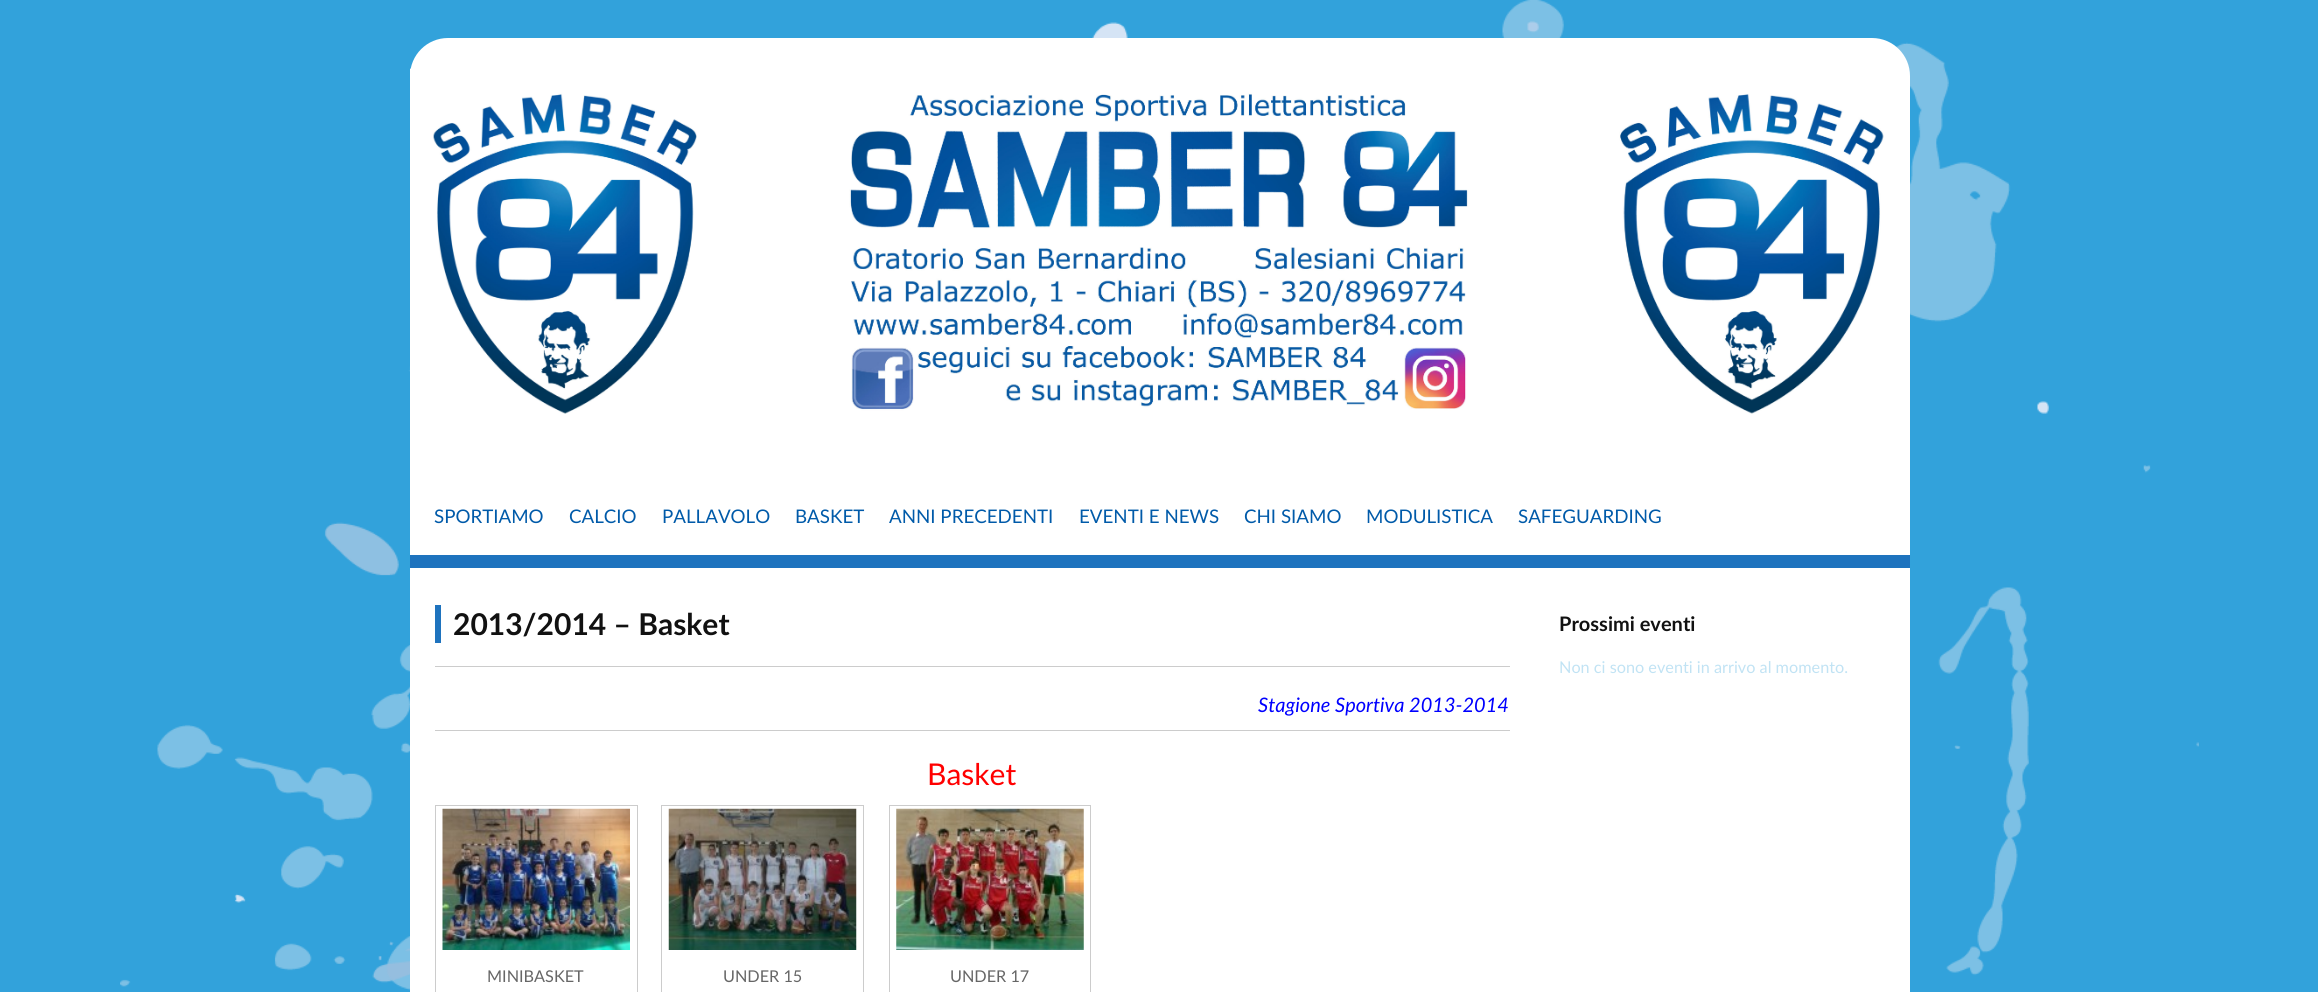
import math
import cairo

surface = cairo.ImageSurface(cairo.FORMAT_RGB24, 2318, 992)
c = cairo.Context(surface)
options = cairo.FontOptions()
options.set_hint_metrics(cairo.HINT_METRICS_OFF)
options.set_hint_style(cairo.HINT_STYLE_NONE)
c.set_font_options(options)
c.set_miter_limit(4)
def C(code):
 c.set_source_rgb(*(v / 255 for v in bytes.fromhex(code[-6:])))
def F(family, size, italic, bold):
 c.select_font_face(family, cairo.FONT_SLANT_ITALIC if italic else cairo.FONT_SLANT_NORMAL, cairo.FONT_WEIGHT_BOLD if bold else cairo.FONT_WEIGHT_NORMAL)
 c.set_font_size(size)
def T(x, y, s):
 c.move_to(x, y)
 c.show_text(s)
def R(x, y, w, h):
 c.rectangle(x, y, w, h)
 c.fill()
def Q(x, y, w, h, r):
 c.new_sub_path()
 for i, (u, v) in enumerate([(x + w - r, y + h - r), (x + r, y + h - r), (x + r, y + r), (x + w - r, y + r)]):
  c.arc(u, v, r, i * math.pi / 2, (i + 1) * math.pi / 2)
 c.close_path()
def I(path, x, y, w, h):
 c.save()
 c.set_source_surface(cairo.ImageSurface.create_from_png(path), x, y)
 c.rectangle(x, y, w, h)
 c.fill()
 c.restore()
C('32a2db')
c.paint()
I('1.png',120,0,2079,991)
C('ffffff')
Q(410,38,1500,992,38)
c.fill()
C('1e73be')
R(410,555,1500,13)
I('2.png',410,68,1474,346)
F('Lato',18.75,0,0)
C('005aa9')
T(434,523,'SPORTIAMO')
T(569,523,'CALCIO')
T(662,523,'PALLAVOLO')
T(795,523,'BASKET')
T(889,523,'ANNI PRECEDENTI')
T(1079,523,'EVENTI E NEWS')
T(1244,523,'CHI SIAMO')
T(1366,523,'MODULISTICA')
T(1518,523,'SAFEGUARDING')
C('1e73be')
R(435,605,6,38)
F('Lato',30,0,1)
C('111111')
T(453,635,'2013/2014 – Basket')
C('cccccc')
R(435,666,1075,1)
F('Lato',20,1,0)
C('0000ff')
T(1258,712,'Stagione Sportiva 2013-2014')
C('cccccc')
R(435,730,1075,1)
F('Lato',30,0,0)
C('ff0000')
T(927,785,'Basket')
c.rectangle(435.5,805.5,202,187)
C('cccccc')
c.set_line_width(1)
c.stroke()
I('3.png',442,808,188,142)
F('Lato',16.25,0,0)
C('666666')
T(487,982,'MINIBASKET')
c.rectangle(661.5,805.5,202,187)
C('cccccc')
c.stroke()
I('4.png',668,808,189,142)
C('666666')
T(723,982,'UNDER 15')
c.rectangle(889.5,805.5,201,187)
C('cccccc')
c.stroke()
I('5.png',896,808,188,142)
C('666666')
T(950,982,'UNDER 17')
F('Lato',20,0,1)
C('111111')
T(1559,631,'Prossimi eventi')
F('Lato',16.25,0,0)
C('c1e3f4')
T(1559,673,'Non ci sono eventi in arrivo al momento.')
surface.write_to_png('o.png')
